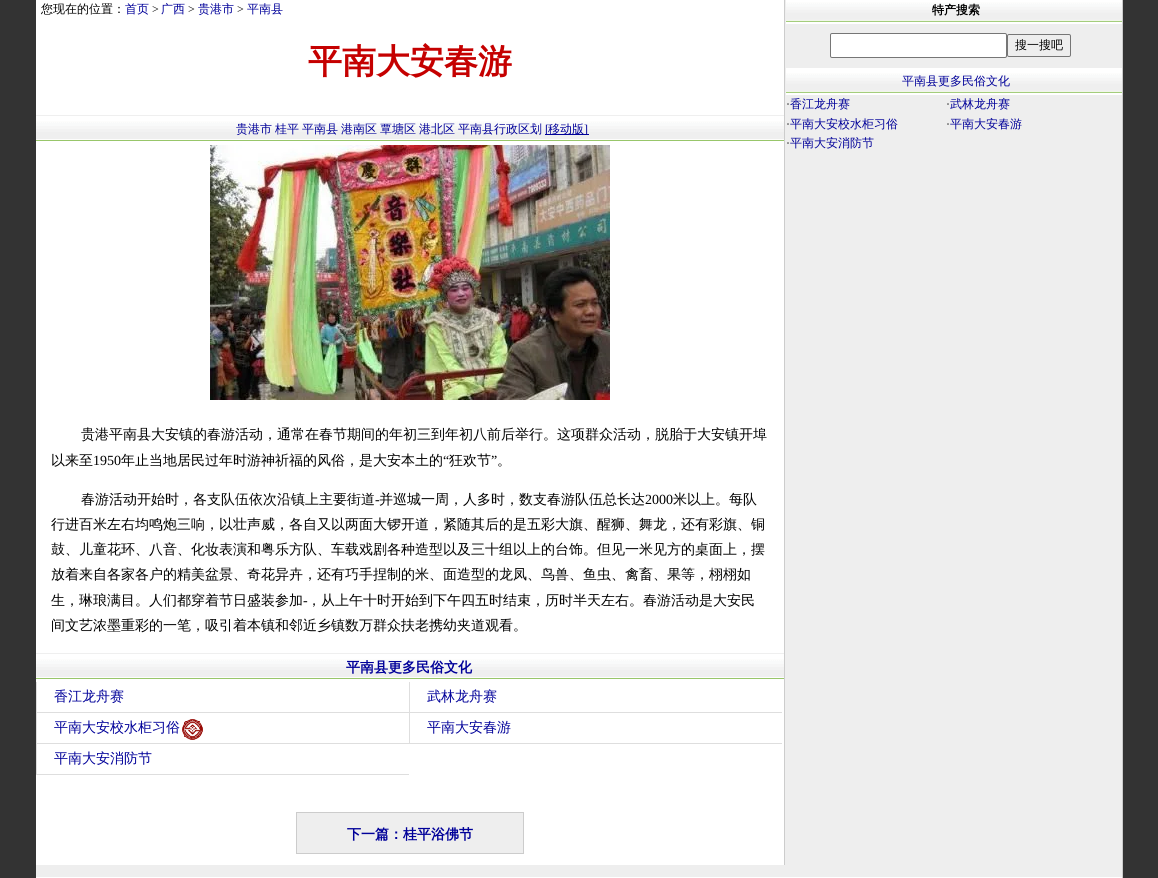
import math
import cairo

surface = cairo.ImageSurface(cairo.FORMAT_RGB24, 1158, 878)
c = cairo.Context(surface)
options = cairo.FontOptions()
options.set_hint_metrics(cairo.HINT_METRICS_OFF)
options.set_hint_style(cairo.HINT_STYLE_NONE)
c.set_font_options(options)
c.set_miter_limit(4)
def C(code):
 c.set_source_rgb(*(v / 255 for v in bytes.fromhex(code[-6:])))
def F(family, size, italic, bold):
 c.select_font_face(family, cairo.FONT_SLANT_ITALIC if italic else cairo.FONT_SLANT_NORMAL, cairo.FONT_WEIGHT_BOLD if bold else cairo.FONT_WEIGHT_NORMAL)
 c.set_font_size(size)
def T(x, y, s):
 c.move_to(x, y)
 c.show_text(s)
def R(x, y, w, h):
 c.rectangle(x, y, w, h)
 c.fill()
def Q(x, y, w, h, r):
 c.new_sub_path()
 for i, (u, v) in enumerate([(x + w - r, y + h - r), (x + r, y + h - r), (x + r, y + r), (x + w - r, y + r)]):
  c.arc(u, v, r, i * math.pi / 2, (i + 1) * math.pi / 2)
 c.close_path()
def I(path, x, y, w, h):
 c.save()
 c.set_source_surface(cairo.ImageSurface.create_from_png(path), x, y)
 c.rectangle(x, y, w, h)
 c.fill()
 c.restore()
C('333333')
c.paint()
C('eeeeee')
R(36,0,1086,877)
C('cccccc')
R(1122,0,1,878)
C('ffffff')
R(36,877,1086,1)
R(36,0,748,865)
C('cccccc')
R(784,0,1,865)
F('WenQuanYi Zen Hei Medium',12,0,0)
C('000000')
T(41,13,'您现在的位置：')
C('000099')
T(125,13,'首页')
F('Liberation Serif',12,0,0)
C('000000')
T(152,13,'>')
F('WenQuanYi Zen Hei Medium',12,0,0)
C('000099')
T(161,13,'广西')
F('Liberation Serif',12,0,0)
C('000000')
T(188,13,'>')
F('WenQuanYi Zen Hei Medium',12,0,0)
C('000099')
T(198,13,'贵港市')
F('Liberation Serif',12,0,0)
C('000000')
T(237,13,'>')
F('WenQuanYi Zen Hei Medium',12,0,0)
C('000099')
T(247,13,'平南县')
F('WenQuanYi Zen Hei',34,0,1)
C('c50000')
T(308,73,'平南大安春游')
I('1.png',36,115,748,26)
F('WenQuanYi Zen Hei Medium',12,0,0)
C('000099')
T(236,133,'贵港市')
T(275,133,'桂平')
T(302,133,'平南县')
T(341,133,'港南区')
T(380,133,'覃塘区')
T(419,133,'港北区')
T(458,133,'平南县行政区划')
R(545,134,44,1)
F('Liberation Serif',12,0,0)
T(545,133,'[')
F('WenQuanYi Zen Hei Medium',12,0,0)
T(548,133,'移动版')
F('Liberation Serif',12,0,0)
T(584,133,']')
I('2.png',210,145,400,255)
F('WenQuanYi Zen Hei Medium',14,0,0)
C('000000')
T(81,439,'贵港平南县大安镇的春游活动，通常在春节期间的年初三到年初八前后举行。这项群众活动，脱胎于大安镇开埠')
T(51,465,'以来至')
F('Liberation Serif',14,0,0)
T(93,465,'1950')
F('WenQuanYi Zen Hei Medium',14,0,0)
T(121,465,'年止当地居民过年时游神祈福的风俗，是大安本土的')
F('Liberation Serif',14,0,0)
T(443,465,'“')
F('WenQuanYi Zen Hei Medium',14,0,0)
T(449,465,'狂欢节')
F('Liberation Serif',14,0,0)
T(491,465,'”')
F('WenQuanYi Zen Hei Medium',14,0,0)
T(497,465,'。')
T(81,504,'春游活动开始时，各支队伍依次沿镇上主要街道')
F('Liberation Serif',14,0,0)
T(375,504,'-')
F('WenQuanYi Zen Hei Medium',14,0,0)
T(379,504,'并巡城一周，人多时，数支春游队伍总长达')
F('Liberation Serif',14,0,0)
T(645,504,'2000')
F('WenQuanYi Zen Hei Medium',14,0,0)
T(673,504,'米以上。每队')
T(51,529,'行进百米左右均鸣炮三响，以壮声威，各自又以两面大锣开道，紧随其后的是五彩大旗、醒狮、舞龙，还有彩旗、铜')
T(51,554,'鼓、儿童花环、八音、化妆表演和粤乐方队、车载戏剧各种造型以及三十组以上的台饰。但见一米见方的桌面上，摆')
T(51,579,'放着来自各家各户的精美盆景、奇花异卉，还有巧手捏制的米、面造型的龙凤、鸟兽、鱼虫、禽畜、果等，栩栩如')
T(51,605,'生，琳琅满目。人们都穿着节日盛装参加')
F('Liberation Serif',14,0,0)
T(303,605,'-')
F('WenQuanYi Zen Hei Medium',14,0,0)
T(307,605,'，从上午十时开始到下午四五时结束，历时半天左右。春游活动是大安民')
T(51,630,'间文艺浓墨重彩的一笔，吸引着本镇和邻近乡镇数万群众扶老携幼夹道观看。')
I('1.png',36,653,748,26)
F('WenQuanYi Zen Hei',14,0,1)
C('000099')
T(346,672,'平南县更多民俗文化')
C('dedede')
R(36,682,1,93)
R(37,712,372,1)
F('WenQuanYi Zen Hei Medium',14,0,0)
C('000099')
T(54,701,'香江龙舟赛')
C('dedede')
R(409,682,1,62)
R(410,712,372,1)
C('000099')
T(427,701,'武林龙舟赛')
C('dedede')
R(37,743,372,1)
C('000099')
T(54,732,'平南大安校水柜习俗')
I('3.png',182,719,21,21)
C('dedede')
R(410,743,372,1)
C('000099')
T(427,732,'平南大安春游')
C('dedede')
R(37,774,372,1)
C('000099')
T(54,763,'平南大安消防节')
C('eeeeee')
c.rectangle(296.5,812.5,227,41)
c.fill_preserve()
C('cccccc')
c.set_line_width(1)
c.stroke()
F('WenQuanYi Zen Hei',14,0,1)
C('000099')
T(347,839,'下一篇：桂平浴佛节')
I('4.png',786,0,336,24)
F('WenQuanYi Zen Hei',12,0,1)
C('000000')
T(932,14,'特产搜索')
C('ffffff')
Q(830.5,33.5,176,24,1.5)
c.fill_preserve()
C('767676')
c.stroke()
Q(1007.5,34.5,63,22,1.5)
c.stroke()
F('WenQuanYi Zen Hei Medium',12,0,0)
C('000000')
T(1015,49,'搜一搜吧')
I('5.png',786,68,336,27)
C('000099')
T(902,85,'平南县更多民俗文化')
F('Liberation Serif',12,0,0)
C('000000')
T(786,108,'·')
F('WenQuanYi Zen Hei Medium',12,0,0)
C('000099')
T(790,108,'香江龙舟赛')
F('Liberation Serif',12,0,0)
C('000000')
T(946,108,'·')
F('WenQuanYi Zen Hei Medium',12,0,0)
C('000099')
T(950,108,'武林龙舟赛')
F('Liberation Serif',12,0,0)
C('000000')
T(786,128,'·')
F('WenQuanYi Zen Hei Medium',12,0,0)
C('000099')
T(790,128,'平南大安校水柜习俗')
F('Liberation Serif',12,0,0)
C('000000')
T(946,128,'·')
F('WenQuanYi Zen Hei Medium',12,0,0)
C('000099')
T(950,128,'平南大安春游')
F('Liberation Serif',12,0,0)
C('000000')
T(786,147,'·')
F('WenQuanYi Zen Hei Medium',12,0,0)
C('000099')
T(790,147,'平南大安消防节')
surface.write_to_png('o.png')
